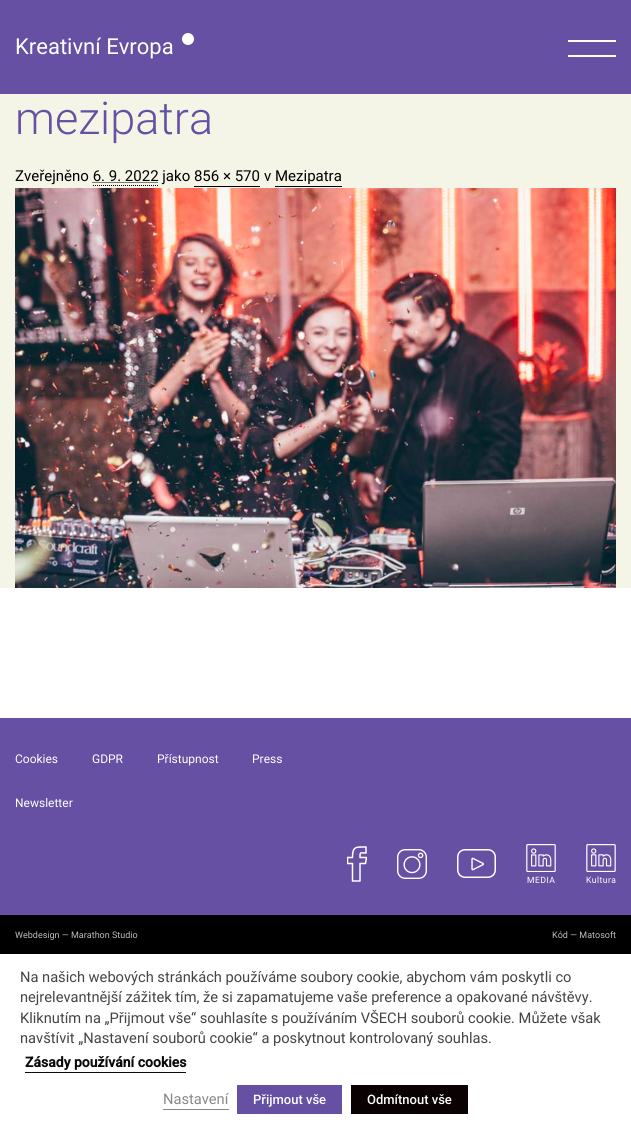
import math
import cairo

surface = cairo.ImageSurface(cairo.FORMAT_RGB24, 631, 1127)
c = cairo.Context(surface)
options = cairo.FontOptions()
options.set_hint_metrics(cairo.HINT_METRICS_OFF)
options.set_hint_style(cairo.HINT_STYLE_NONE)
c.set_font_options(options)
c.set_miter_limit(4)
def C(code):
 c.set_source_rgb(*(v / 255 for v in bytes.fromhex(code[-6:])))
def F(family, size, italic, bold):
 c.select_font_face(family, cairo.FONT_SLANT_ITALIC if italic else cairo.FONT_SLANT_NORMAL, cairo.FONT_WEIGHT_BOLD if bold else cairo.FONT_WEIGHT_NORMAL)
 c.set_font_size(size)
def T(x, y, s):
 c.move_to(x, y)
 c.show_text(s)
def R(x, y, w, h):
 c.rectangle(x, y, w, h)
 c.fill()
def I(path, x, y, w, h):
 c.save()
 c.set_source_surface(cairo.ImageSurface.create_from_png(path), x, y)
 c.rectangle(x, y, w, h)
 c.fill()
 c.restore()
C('f5f5e7')
c.paint()
C('6550a3')
R(0,0,631,94)
F('Roboto',22,0,0)
C('ffffff')
T(15,54,'Kreativní Evropa')
c.new_path()
c.arc(188,39,6,0,2 * math.pi)
c.fill()
R(568,40,48,2)
R(568,55,48,2)
F('Roboto Light',45,0,0)
C('6550a3')
T(15,134,'mezipatra')
F('Roboto',15,0,0)
C('000000')
T(15,181,'Zveřejněno 6. 9. 2022 jako 856 × 570')
T(264,181,'v Mezipatra')
c.new_path()
c.move_to(92.5,182.5)
c.line_to(158.5,182.5)
c.set_line_width(1)
c.set_dash([1,1])
c.stroke()
c.new_path()
c.move_to(93,185.5)
c.line_to(159,185.5)
c.stroke()
R(194,186,66,1)
R(275,186,67,1)
I('1.png',15,188,601,400)
C('ffffff')
R(0,588,631,130)
C('6550a3')
R(0,718,631,197)
F('Roboto',12,0,0)
C('ffffff')
T(15,763,'Cookies')
T(92,763,'GDPR')
T(157,763,'Přístupnost')
T(252,763,'Press')
T(15,807,'Newsletter')
c.save()
c.rectangle(347,846,20,36)
c.clip()
c.new_path()
c.move_to(366.5,857.5)
c.line_to(360,857.5)
c.curve_to(360,851.5,360,853,366,853)
c.line_to(366,847)
c.curve_to(356,847,352.5,846,352.5,857.5)
c.line_to(347.5,857.5)
c.line_to(347.5,863.5)
c.line_to(352.5,863.5)
c.line_to(352.5,881)
c.line_to(360,881)
c.line_to(360,863.5)
c.line_to(365.5,863.5)
c.close_path()
c.set_line_width(1.5)
c.set_line_cap(cairo.LINE_CAP_ROUND)
c.set_line_join(cairo.LINE_JOIN_ROUND)
c.set_dash([])
c.stroke()
c.restore()
I('2.png',397,849,30,30)
I('3.png',457,849,39,29)
I('4.png',526,844,30,39)
I('5.png',586,844,30,39)
C('000000')
R(0,915,631,39)
F('Roboto',9,0,0)
C('bebebe')
T(15,938,'Webdesign — Marathon Studio')
T(552,938,'Kód — Matosoft')
C('ffffff')
R(0,954,631,173)
F('Roboto',14.65,0,0)
C('444444')
T(20,982,'Na našich webových stránkách používáme soubory cookie, abychom vám poskytli co')
T(20,1002,'nejrelevantnější zážitek tím, že si zapamatujeme vaše preference a opakované návštěvy.')
T(20,1023,'Kliknutím na „Přijmout vše“ souhlasíte s používáním VŠECH souborů cookie. Můžete však')
T(20,1043,'navštívit „Nastavení souborů cookie“ a poskytnout kontrolovaný souhlas.')
F('Roboto',14,0,1)
C('0a0a0a')
T(25,1067,'Zásady používání cookies')
R(25,1072,161,1)
F('Roboto',14.65,0,0)
C('898888')
T(163,1104,'Nastavení')
R(163,1109,66,1)
C('6550a3')
R(237,1085,105,29)
F('Roboto Medium',13,0,0)
C('ffffff')
T(253,1104,'Přijmout vše')
C('0a0202')
R(351,1085,117,29)
C('ffffff')
T(367,1104,'Odmítnout vše')
surface.write_to_png('o.png')
